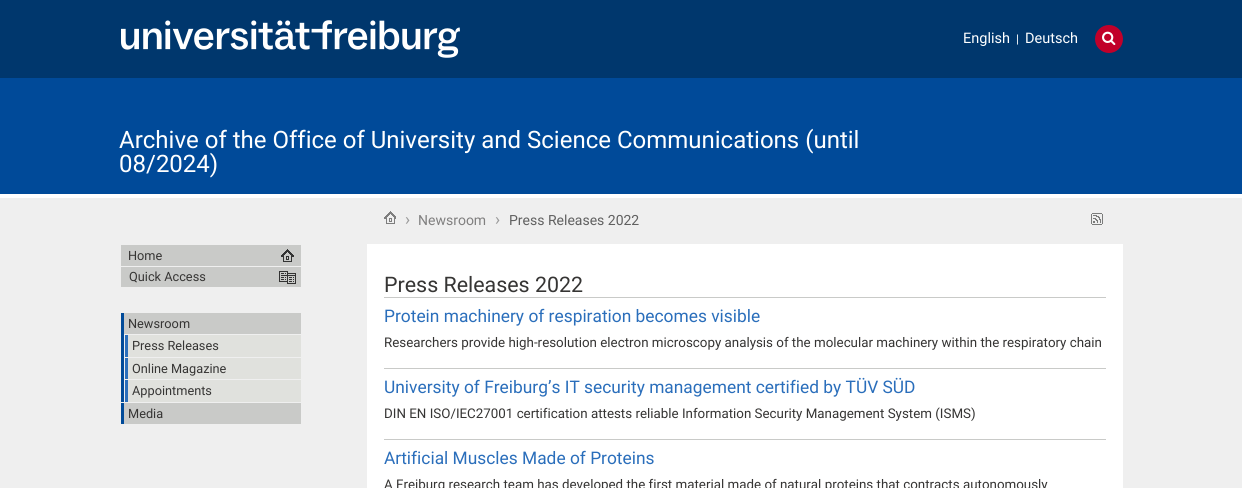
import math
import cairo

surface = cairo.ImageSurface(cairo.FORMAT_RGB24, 1242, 488)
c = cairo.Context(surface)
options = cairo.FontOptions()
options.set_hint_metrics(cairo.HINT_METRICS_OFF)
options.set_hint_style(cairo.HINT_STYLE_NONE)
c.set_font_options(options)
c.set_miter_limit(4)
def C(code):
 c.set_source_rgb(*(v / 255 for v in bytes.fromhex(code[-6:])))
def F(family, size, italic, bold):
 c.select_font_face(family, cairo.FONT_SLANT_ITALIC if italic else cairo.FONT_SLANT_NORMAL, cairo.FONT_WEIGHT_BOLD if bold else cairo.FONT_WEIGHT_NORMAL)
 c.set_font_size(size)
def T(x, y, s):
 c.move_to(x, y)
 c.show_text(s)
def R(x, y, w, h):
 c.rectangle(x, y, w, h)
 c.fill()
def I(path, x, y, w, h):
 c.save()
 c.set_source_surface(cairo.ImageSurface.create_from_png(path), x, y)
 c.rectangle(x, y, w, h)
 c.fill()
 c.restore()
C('efefef')
c.paint()
C('004a99')
R(0,78,1242,116)
C('ffffff')
R(0,194,1242,4)
C('00376d')
R(0,0,1242,78)
I('1.png',121,20,339,38)
F('Roboto',14.5,0,0)
C('ffffff')
T(963,43,'English')
F('Roboto',12,0,0)
T(1016,43,'|')
F('Roboto',14.5,0,0)
T(1025,43,'Deutsch')
C('c1002a')
c.new_path()
c.arc(1109,39,14,0,2 * math.pi)
c.fill()
I('2.png',1102,31,14,14)
F('Roboto',24,0,0)
C('ffffff')
T(119,148,'Archive of the Office of University and Science Communications (until')
T(119,172,'08/2024)')
R(367,244,756,244)
C('c9cac8')
R(121,245,180,21)
I('3.png',281,249,13,13)
F('Roboto',12.75,0,0)
C('363534')
T(128,260,'Home')
C('c9cac8')
R(121,267,180,20)
I('4.png',279,271,17,13)
C('363534')
T(129,281,'Quick Access')
C('004a99')
R(121,313,3,89)
C('c9cac8')
R(124,313,177,21)
C('363534')
T(128,328,'Newsroom')
C('2a6ebb')
R(125,335,3,22)
C('e0e1dd')
R(128,335,173,22)
C('363534')
T(132,350,'Press Releases')
C('2a6ebb')
R(125,358,3,21)
C('e0e1dd')
R(128,358,173,21)
C('363534')
T(132,373,'Online Magazine')
C('2a6ebb')
R(125,380,3,22)
C('e0e1dd')
R(128,380,173,22)
C('363534')
T(132,395,'Appointments')
C('004a99')
R(121,403,3,21)
C('c9cac8')
R(124,403,177,21)
C('363534')
T(128,418,'Media')
I('5.png',384,211,12,13)
F('Roboto',17,0,0)
C('999999')
T(405,225,'›')
F('Roboto',14,0,0)
C('807f7f')
T(418,225,'Newsroom')
F('Roboto',17,0,0)
C('999999')
T(495,225,'›')
F('Roboto',14,0,0)
C('606060')
T(509,225,'Press Releases 2022')
I('6.png',1091,213,12,12)
C('c9cac8')
R(384,297,722,1)
F('Roboto',21.4,0,0)
C('363534')
T(384,292,'Press Releases 2022')
C('c9cac8')
R(384,368,722,1)
F('Roboto',17.35,0,0)
C('2a6ebb')
T(384,322,'Protein machinery of respiration becomes visible')
F('Roboto',13.35,0,0)
C('363534')
T(384,347,'Researchers provide high-resolution electron microscopy analysis of the molecular machinery within the respiratory chain')
C('c9cac8')
R(384,439,722,1)
F('Roboto',17.35,0,0)
C('2a6ebb')
T(384,393,'University of Freiburg’s IT security management certified by TÜV SÜD')
F('Roboto',13.35,0,0)
C('363534')
T(384,418,'DIN EN ISO/IEC27001 certification attests reliable Information Security Management System (ISMS)')
F('Roboto',17.35,0,0)
C('2a6ebb')
T(384,464,'Artificial Muscles Made of Proteins')
F('Roboto',13.35,0,0)
C('363534')
T(384,489,'A Freiburg research team has developed the first material made of natural proteins that contracts autonomously')
surface.write_to_png('o.png')
